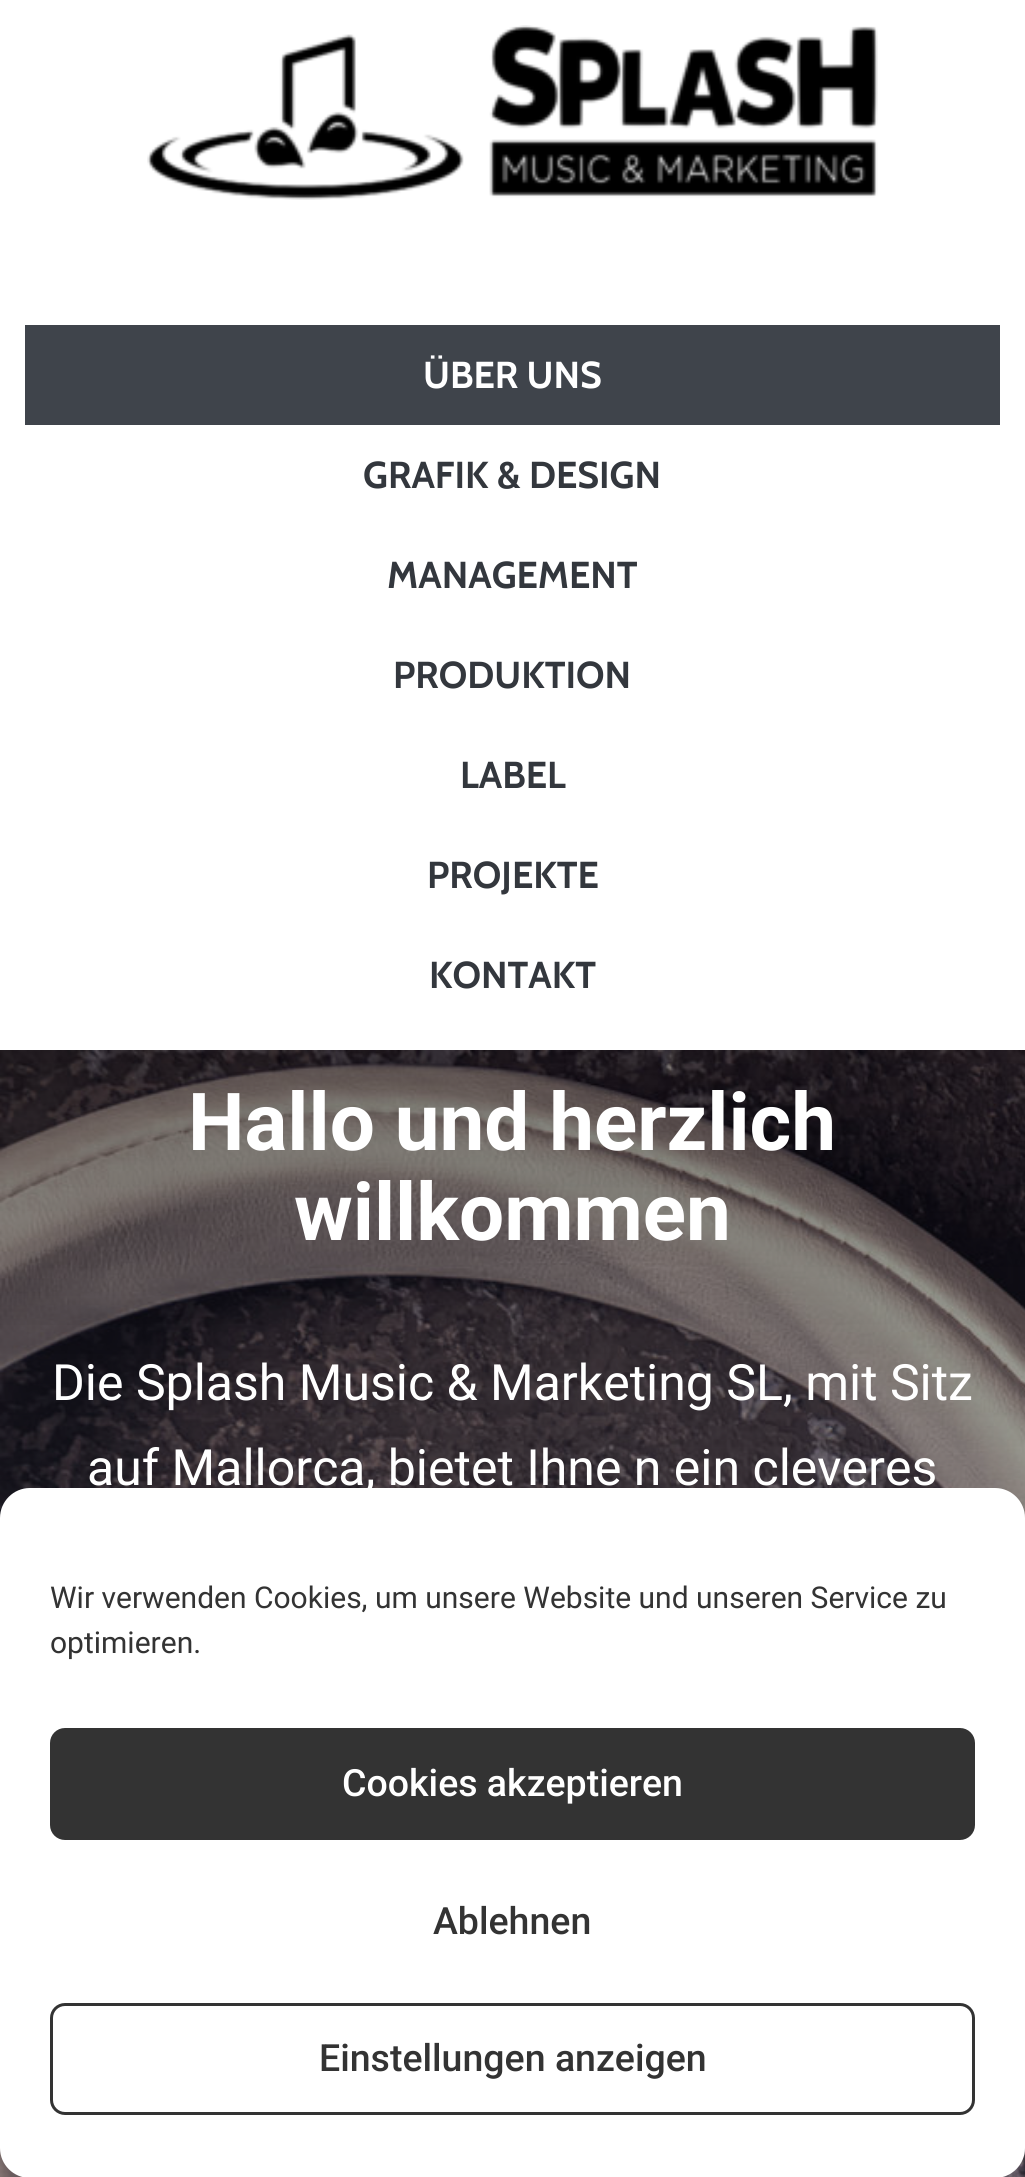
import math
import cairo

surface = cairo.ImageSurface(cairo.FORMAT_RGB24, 1025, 2177)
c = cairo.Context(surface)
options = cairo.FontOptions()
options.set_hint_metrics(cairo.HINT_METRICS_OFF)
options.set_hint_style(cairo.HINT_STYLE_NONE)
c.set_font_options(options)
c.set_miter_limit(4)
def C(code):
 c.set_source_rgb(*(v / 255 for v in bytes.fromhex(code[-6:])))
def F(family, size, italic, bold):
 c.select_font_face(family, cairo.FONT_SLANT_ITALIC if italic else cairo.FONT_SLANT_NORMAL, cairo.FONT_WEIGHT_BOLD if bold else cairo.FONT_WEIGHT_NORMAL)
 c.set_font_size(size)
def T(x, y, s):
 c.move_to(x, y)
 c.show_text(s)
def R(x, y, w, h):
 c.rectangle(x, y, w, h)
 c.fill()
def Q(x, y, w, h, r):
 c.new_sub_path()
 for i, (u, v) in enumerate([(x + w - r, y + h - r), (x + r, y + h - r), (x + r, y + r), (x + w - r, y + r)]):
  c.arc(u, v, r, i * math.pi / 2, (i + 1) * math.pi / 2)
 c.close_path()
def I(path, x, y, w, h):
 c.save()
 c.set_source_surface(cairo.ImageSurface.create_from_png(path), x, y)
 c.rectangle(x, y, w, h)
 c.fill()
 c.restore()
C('ffffff')
c.paint()
I('1.png',147,25,731,175)
C('3f444b')
R(25,325,975,100)
F('Cabin',37.5,0,1)
C('ffffff')
T(423,388,'ÜBER UNS')
C('33373d')
T(363,488,'GRAFIK & DESIGN')
T(387,588,'MANAGEMENT')
T(393,688,'PRODUKTION')
T(460,788,'LABEL')
T(427,888,'PROJEKTE')
T(429,988,'KONTAKT')
I('2.png',0,1050,1025,1127)
F('Roboto',80,0,1)
C('ffffff')
T(188,1150,'Hallo und herzlich')
T(294,1240,'willkommen')
F('Roboto',50,0,0)
T(52,1400,'Die Splash Music & Marketing SL, mit Sitz')
T(87,1485,'auf Mallorca, bietet Ihne n ein cleveres')
Q(0,1488,1025,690,30)
c.fill()
F('Roboto',30,0,0)
C('333333')
T(50,1608,'Wir verwenden Cookies, um unsere Website und unseren Service zu')
T(50,1653,'optimieren.')
Q(51.5,1729.5,922,109,13.5)
c.fill_preserve()
c.set_line_width(3)
c.stroke()
F('Roboto Medium',37.5,0,0)
C('ffffff')
T(342,1796,'Cookies akzeptieren')
C('333333')
T(433,1934,'Ablehnen')
Q(51.5,2004.5,922,109,13.5)
c.stroke()
T(319,2071,'Einstellungen anzeigen')
surface.write_to_png('o.png')
